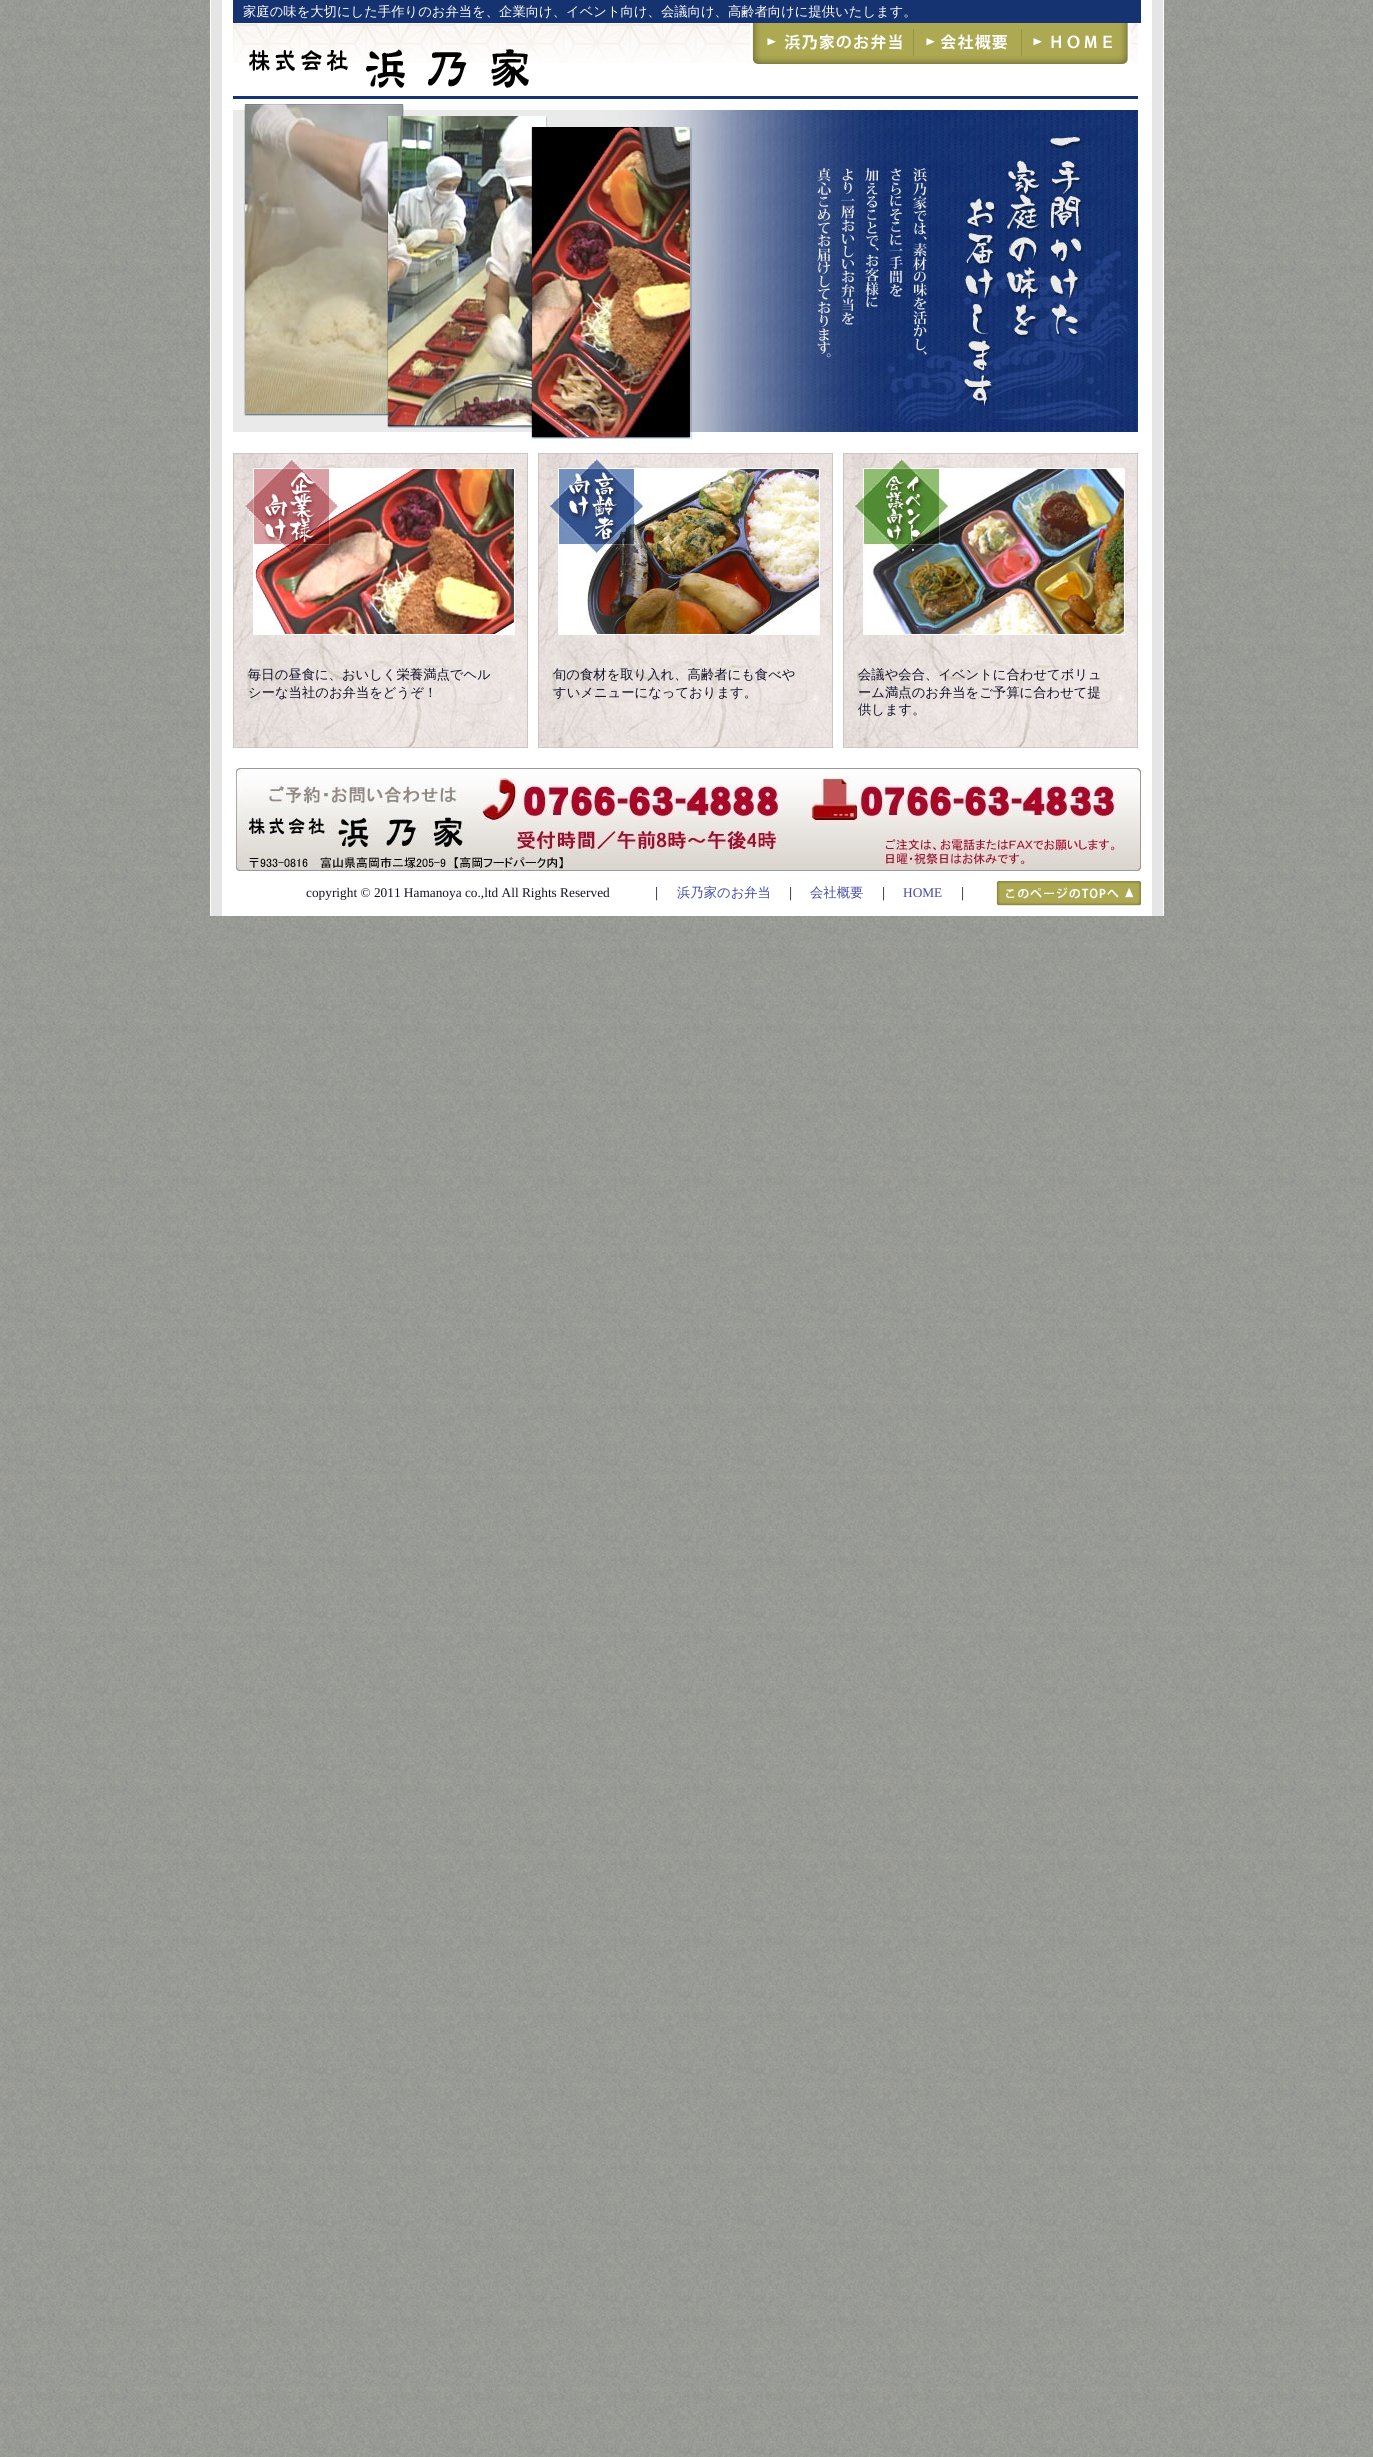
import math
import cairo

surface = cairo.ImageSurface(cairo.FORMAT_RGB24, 1373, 2457)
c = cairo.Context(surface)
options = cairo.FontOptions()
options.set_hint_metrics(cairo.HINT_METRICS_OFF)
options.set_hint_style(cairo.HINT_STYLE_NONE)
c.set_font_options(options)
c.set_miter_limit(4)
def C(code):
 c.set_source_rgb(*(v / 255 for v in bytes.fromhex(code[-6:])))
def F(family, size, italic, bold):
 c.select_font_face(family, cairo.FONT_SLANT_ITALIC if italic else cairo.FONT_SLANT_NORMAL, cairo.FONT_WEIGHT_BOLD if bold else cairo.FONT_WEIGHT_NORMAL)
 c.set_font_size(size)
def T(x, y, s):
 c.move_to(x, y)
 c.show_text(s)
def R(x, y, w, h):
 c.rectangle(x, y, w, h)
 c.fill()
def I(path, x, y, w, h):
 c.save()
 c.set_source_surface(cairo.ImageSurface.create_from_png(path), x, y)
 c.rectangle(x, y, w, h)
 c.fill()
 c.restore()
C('ffffff')
c.paint()
I('1.png',0,0,1373,2457)
C('e5e5e5')
R(211,0,952,916)
C('ffffff')
R(1163,0,1,916)
R(210,0,1,916)
R(222,0,930,916)
C('153271')
R(233,0,908,23)
F('WenQuanYi Zen Hei Medium',13.33,0,0)
C('ffffff')
T(243,16,'家庭の味を大切にした手作りのお弁当を、企業向け、イベント向け、会議向け、高齢者向けに提供いたします。')
I('2.png',233,23,905,40)
C('153271')
R(233,96,905,3)
I('3.png',750,23,164,41)
I('4.png',914,23,108,41)
I('5.png',1022,23,109,41)
I('6.png',249,49,280,39)
I('7.png',233,104,458,336)
I('8.png',691,104,447,336)
I('9.png',233,453,295,295)
C('111127')
T(248,679,'毎日の昼食に、おいしく栄養満点でヘル')
T(248,697,'シーな当社のお弁当をどうぞ！')
I('10.png',538,453,295,295)
T(553,679,'旬の食材を取り入れ、高齢者にも食べや')
T(553,697,'すいメニューになっております。')
I('11.png',843,453,295,295)
T(858,679,'会議や会合、イベントに合わせてボリュ')
T(858,697,'ーム満点のお弁当をご予算に合わせて提')
T(858,714,'供します。')
I('12.png',236,768,905,103)
F('Liberation Serif',13.33,0,0)
T(306,897,'copyright © 2011 Hamanoya co.,ltd All Rights Reserved')
F('WenQuanYi Zen Hei Medium',13.33,0,0)
T(650,897,'｜')
C('434ba6')
T(677,897,'浜乃家のお弁当')
C('111127')
T(784,897,'｜')
C('434ba6')
T(810,897,'会社概要')
C('111127')
T(877,897,'｜')
F('Liberation Serif',13.33,0,0)
C('434ba6')
T(903,897,'HOME')
F('WenQuanYi Zen Hei Medium',13.33,0,0)
C('111127')
T(956,897,'｜')
I('13.png',996,881,145,25)
surface.write_to_png('o.png')
